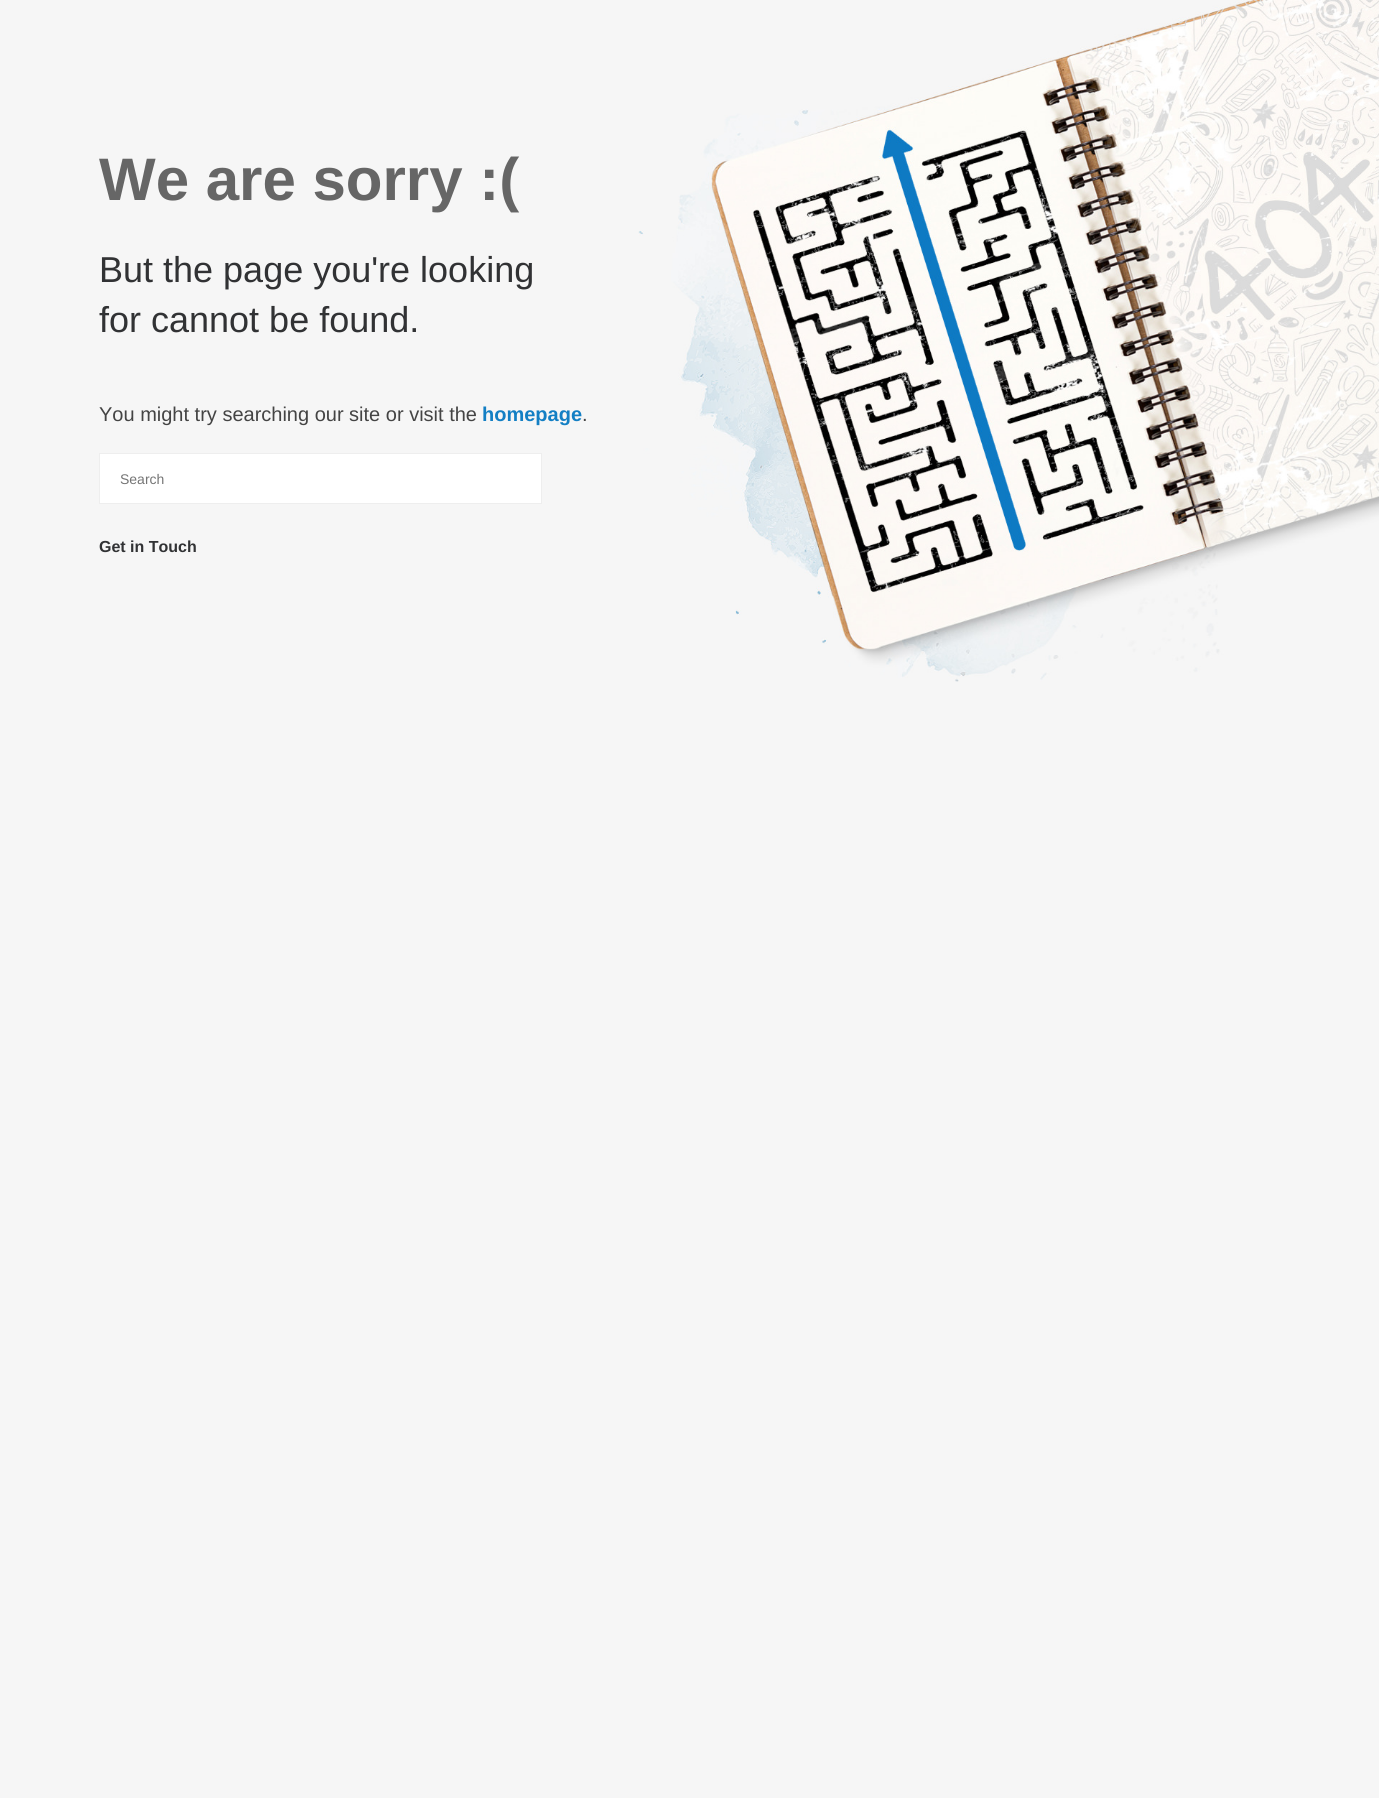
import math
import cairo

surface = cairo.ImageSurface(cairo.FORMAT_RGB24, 1379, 1798)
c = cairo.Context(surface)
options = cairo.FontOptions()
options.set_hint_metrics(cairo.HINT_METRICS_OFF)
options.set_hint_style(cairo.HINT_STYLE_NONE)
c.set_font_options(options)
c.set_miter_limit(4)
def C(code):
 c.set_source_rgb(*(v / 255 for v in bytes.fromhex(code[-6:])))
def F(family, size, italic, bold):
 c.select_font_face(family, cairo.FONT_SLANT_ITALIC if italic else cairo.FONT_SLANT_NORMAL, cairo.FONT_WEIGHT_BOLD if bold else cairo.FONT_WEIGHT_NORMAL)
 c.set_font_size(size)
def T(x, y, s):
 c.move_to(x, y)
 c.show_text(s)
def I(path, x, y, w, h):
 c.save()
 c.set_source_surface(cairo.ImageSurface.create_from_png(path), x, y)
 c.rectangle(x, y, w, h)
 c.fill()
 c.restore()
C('f6f6f6')
c.paint()
I('1.png',638,0,741,682)
F('Liberation Sans',60,0,1)
C('666666')
T(99,200,'We are sorry :(')
F('Liberation Sans',36,0,0)
C('313234')
T(99,282,'But the page you\'re looking')
T(99,332,'for cannot be found.')
F('Liberation Sans',20,0,0)
C('444444')
T(99,421,'You might try searching our site or visit the')
F('Liberation Sans',20,0,1)
C('137fc4')
T(482,421,'homepage')
F('Liberation Sans',20,0,0)
C('444444')
T(582,421,'.')
C('ffffff')
c.rectangle(99.5,453.5,442,50)
c.fill_preserve()
C('eeeeee')
c.set_line_width(1)
c.stroke()
F('Liberation Sans',14,0,0)
C('757575')
T(120,484,'Search')
F('Liberation Sans',16,0,1)
C('313234')
T(99,552,'Get in Touch')
surface.write_to_png('o.png')
